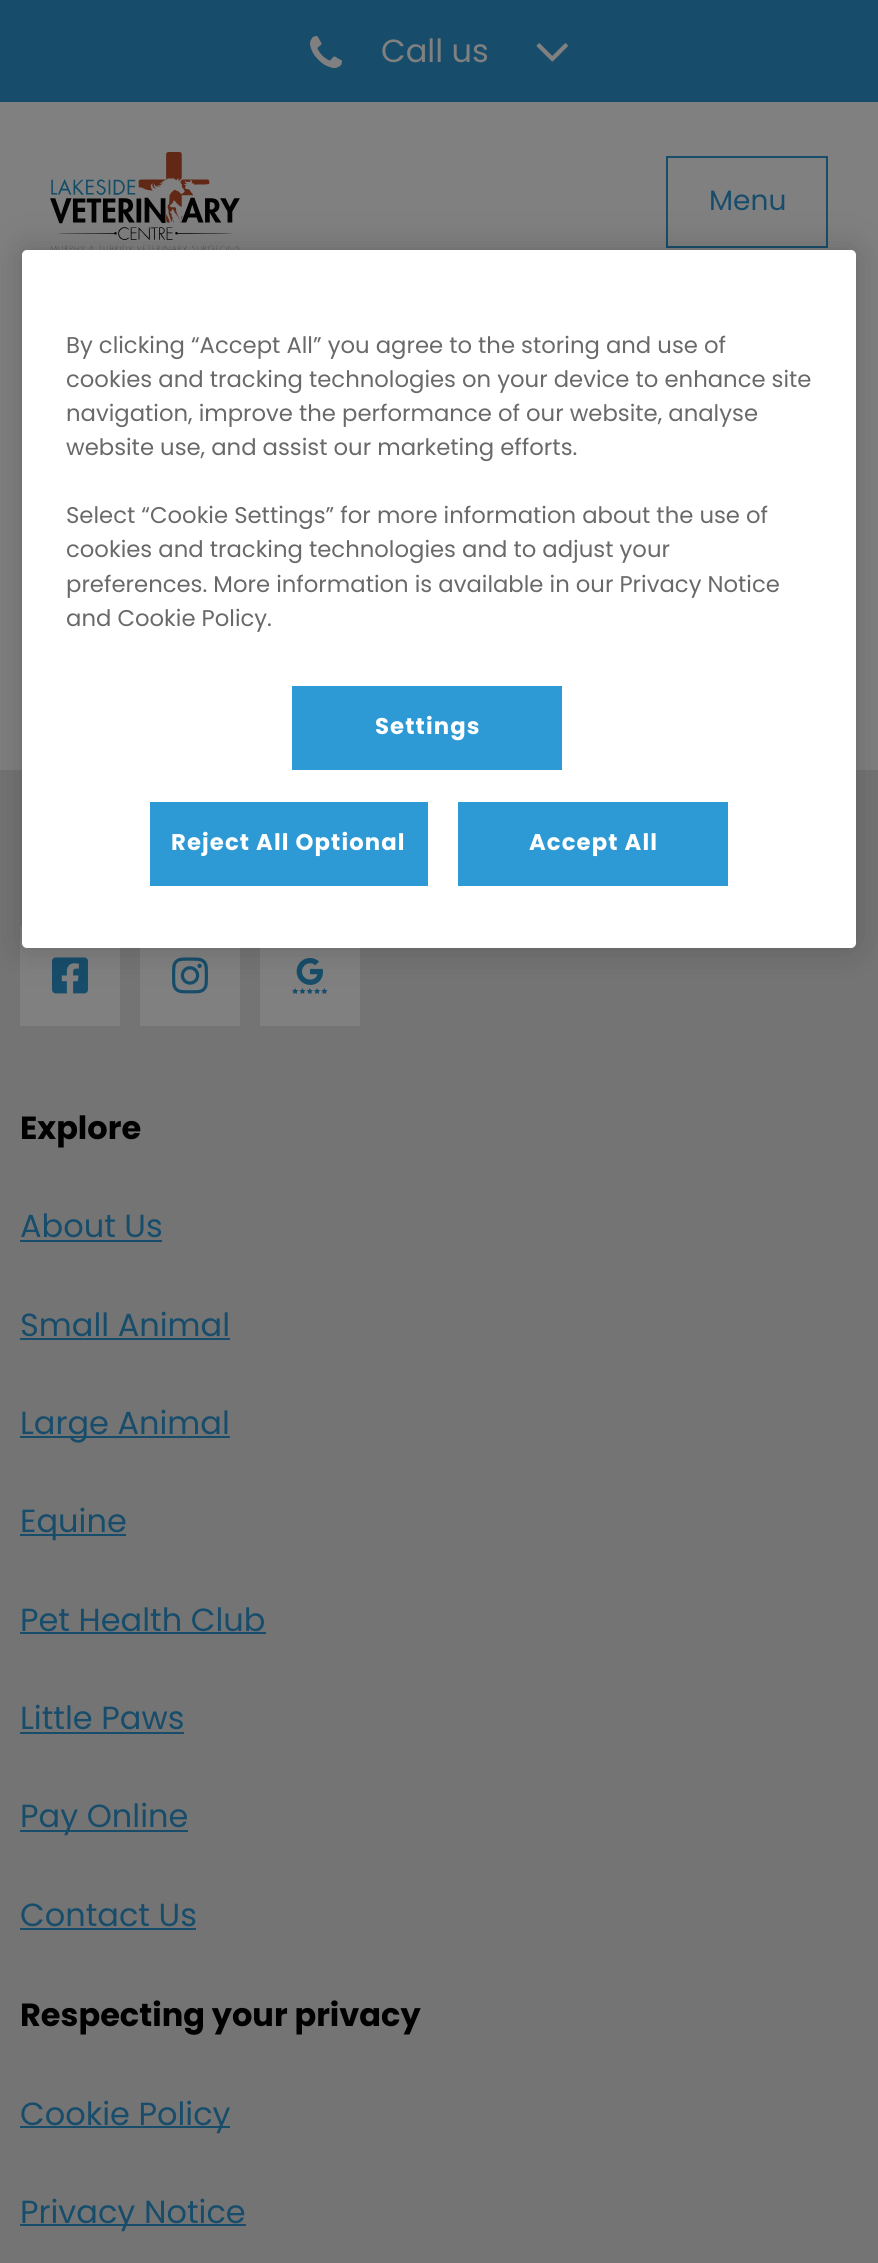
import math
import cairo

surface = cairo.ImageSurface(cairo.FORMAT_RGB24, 878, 2263)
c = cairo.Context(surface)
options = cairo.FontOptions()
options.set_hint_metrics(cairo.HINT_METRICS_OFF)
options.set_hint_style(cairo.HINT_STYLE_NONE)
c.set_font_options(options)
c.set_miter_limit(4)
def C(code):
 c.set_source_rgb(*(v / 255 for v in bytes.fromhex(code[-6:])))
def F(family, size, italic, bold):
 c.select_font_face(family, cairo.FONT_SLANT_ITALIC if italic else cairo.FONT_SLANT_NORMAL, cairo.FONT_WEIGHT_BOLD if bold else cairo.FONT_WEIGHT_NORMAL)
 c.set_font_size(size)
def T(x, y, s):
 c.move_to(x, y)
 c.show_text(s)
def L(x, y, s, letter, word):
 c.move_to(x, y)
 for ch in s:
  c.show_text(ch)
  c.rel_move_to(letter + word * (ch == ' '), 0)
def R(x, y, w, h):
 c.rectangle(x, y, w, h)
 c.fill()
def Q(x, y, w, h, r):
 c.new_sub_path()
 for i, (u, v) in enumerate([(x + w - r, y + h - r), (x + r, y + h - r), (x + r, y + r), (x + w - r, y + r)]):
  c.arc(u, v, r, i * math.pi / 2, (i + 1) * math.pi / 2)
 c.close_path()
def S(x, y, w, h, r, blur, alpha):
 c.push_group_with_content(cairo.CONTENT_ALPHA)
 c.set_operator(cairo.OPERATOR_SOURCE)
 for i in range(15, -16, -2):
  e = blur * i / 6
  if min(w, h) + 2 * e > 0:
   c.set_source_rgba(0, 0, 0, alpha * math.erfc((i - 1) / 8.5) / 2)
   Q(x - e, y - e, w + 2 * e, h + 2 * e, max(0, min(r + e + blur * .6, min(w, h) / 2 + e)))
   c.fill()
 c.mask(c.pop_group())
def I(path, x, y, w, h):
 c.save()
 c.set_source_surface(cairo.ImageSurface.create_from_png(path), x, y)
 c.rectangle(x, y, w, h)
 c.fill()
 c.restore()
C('808080')
c.paint()
C('174d6b')
R(0,0,878,102)
I('1.png',310,36,32,33)
F('Poppins',32,0,0)
C('808080')
T(381,62,'Call us')
I('2.png',536,43,32,19)
I('3.png',50,152,190,98)
c.rectangle(667,157,160,90)
C('174d6b')
c.stroke()
F('Poppins',28,0,0)
T(709,210,'Menu')
C('747474')
R(0,770,878,1493)
C('808080')
R(20,926,100,100)
I('4.png',52,957,36,37)
R(140,948,100,78)
I('5.png',172,957,36,37)
R(260,948,100,78)
I('6.png',292,958,36,36)
F('Poppins',32,0,1)
C('000000')
T(20,1139,'Explore')
F('Poppins',32,0,0)
C('174d6b')
T(20,1237,'About Us')
R(20,1240,142,2)
T(20,1336,'Small Animal')
R(20,1338,210,2)
R(20,1436,210,2)
T(20,1434,'Large Animal')
R(20,1534,106,2)
T(20,1532,'Equine')
T(20,1631,'Pet Health Club')
R(20,1632,246,2)
T(20,1729,'Little Paws')
R(20,1732,164,2)
R(20,1830,168,2)
T(20,1827,'Pay Online')
T(20,1926,'Contact Us')
R(20,1928,176,2)
F('Poppins',32,0,1)
C('000000')
T(20,2026,'Respecting your privacy')
C('174d6b')
R(20,2126,210,2)
F('Poppins',32,0,0)
T(20,2125,'Cookie Policy')
R(20,2224,226,2)
T(20,2223,'Privacy Notice')
C('000000')
S(22,250,834,698,5,18,.2)
C('ffffff')
Q(22,250,834,698,5)
c.fill()
F('Poppins',22.75,0,0)
C('696969')
T(66,353,'By clicking “Accept All” you agree to the storing and use of')
T(66,387,'cookies and tracking technologies on your device to enhance site')
T(66,421,'navigation, improve the performance of our website, analyse')
T(66,455,'website use, and assist our marketing efforts.')
T(66,523,'Select “Cookie Settings” for more information about the use of')
T(66,557,'cookies and tracking technologies and to adjust your')
T(66,592,'preferences. More information is available in our Privacy Notice')
T(66,626,'and Cookie Policy.')
C('2e9ad5')
R(292,686,270,84)
F('Poppins',22.75,0,1)
C('ffffff')
L(375,734,'Settings',1.1,0)
C('2e9ad5')
R(150,802,278,84)
C('ffffff')
L(171,850,'Reject All Optional',1.1,0)
C('2e9ad5')
R(458,802,270,84)
C('ffffff')
L(529,850,'Accept All',1.1,0)
surface.write_to_png('o.png')
